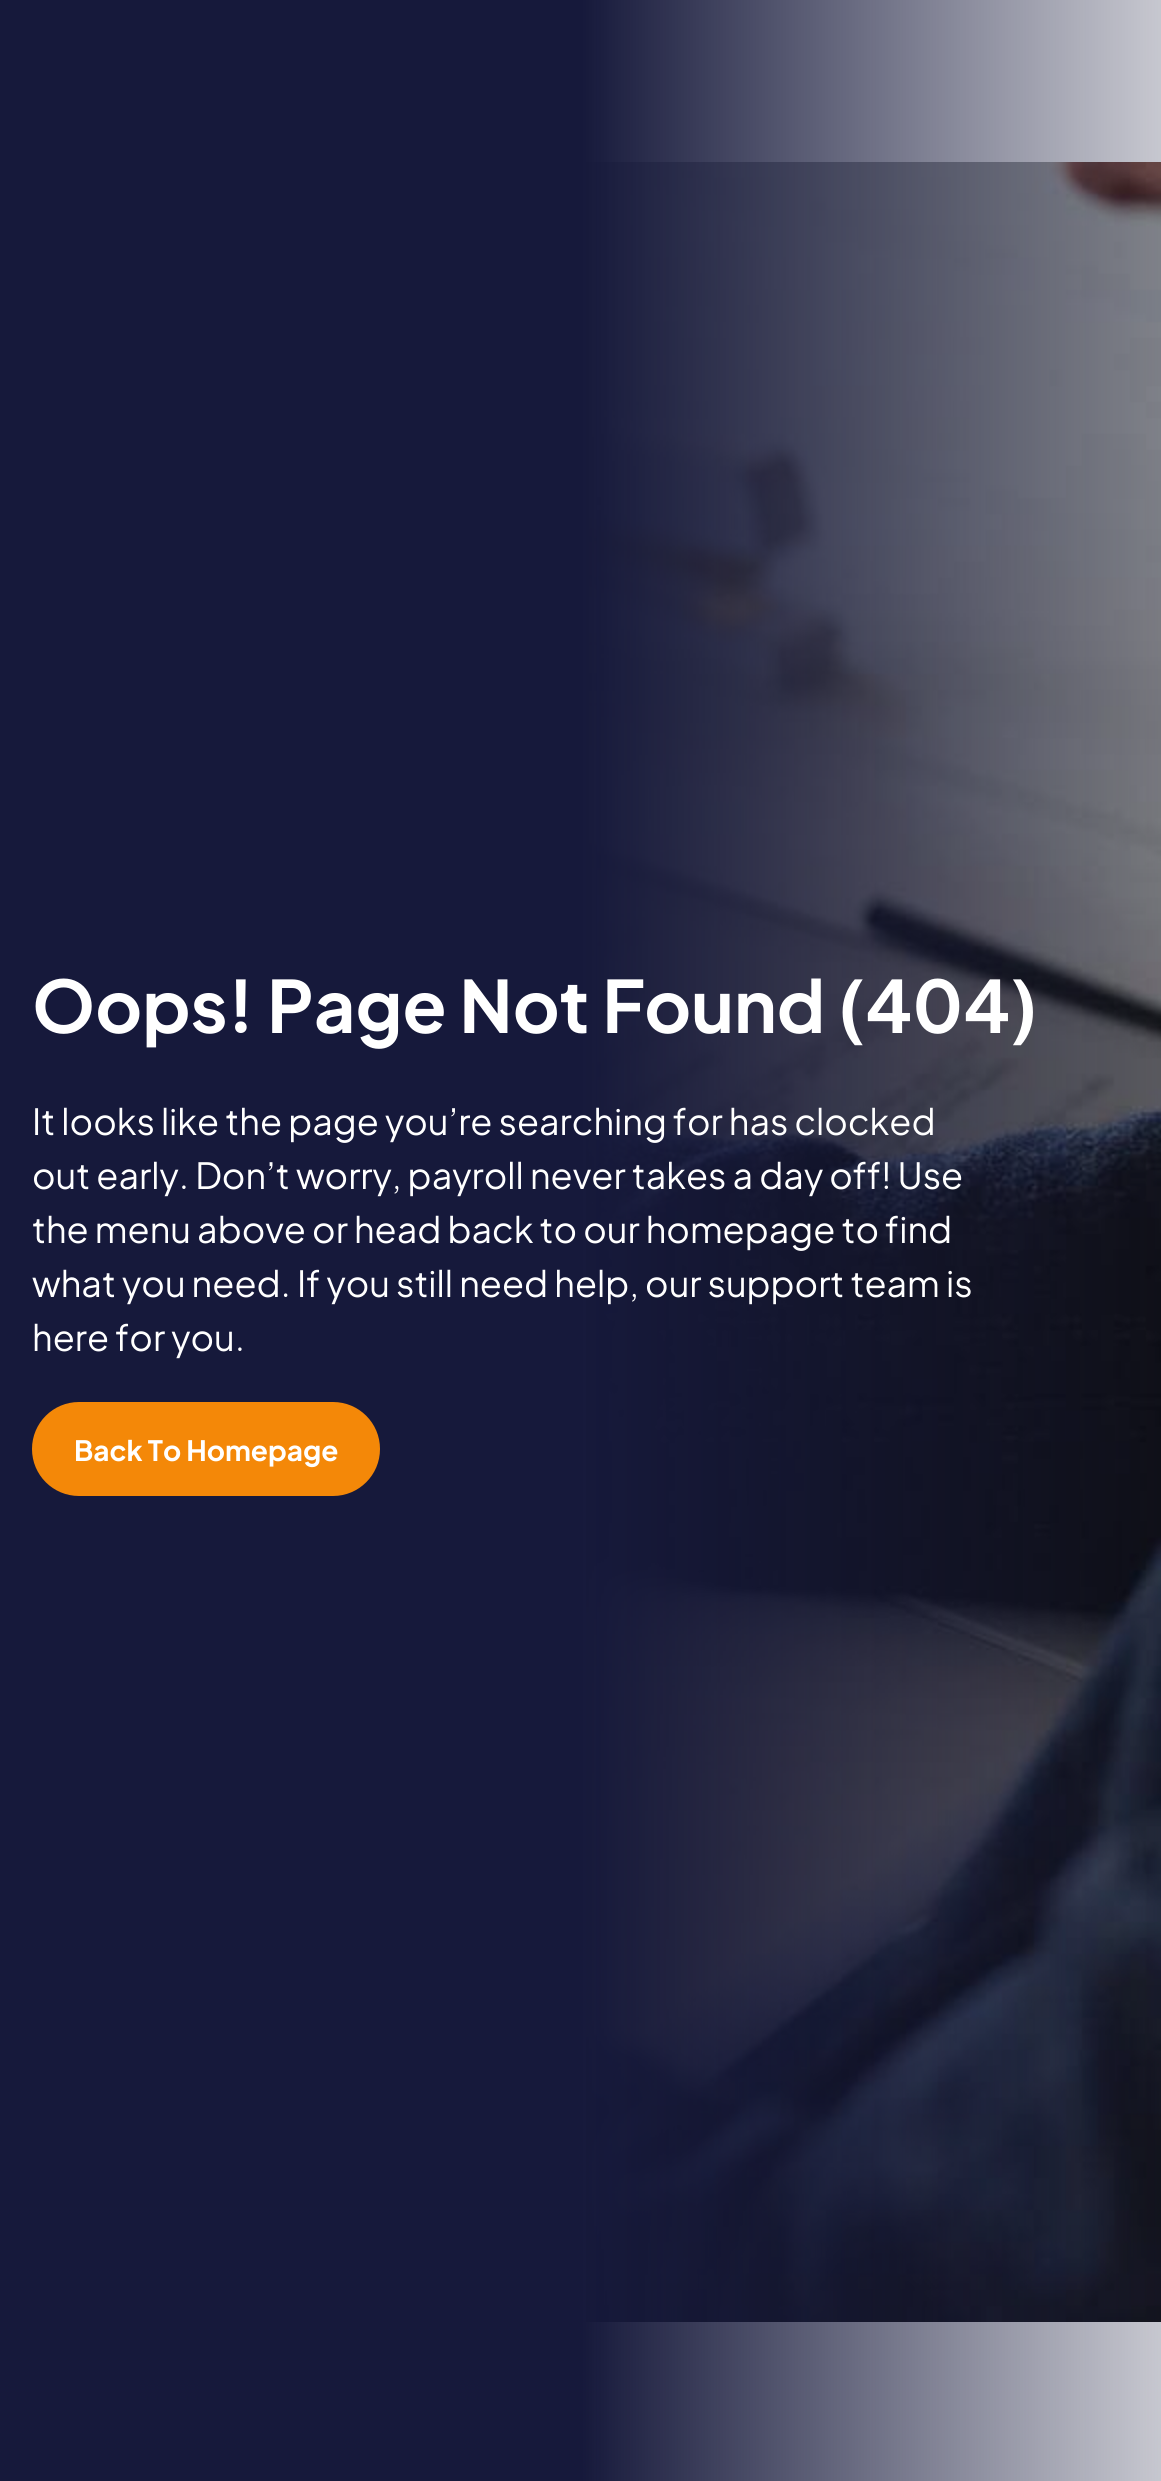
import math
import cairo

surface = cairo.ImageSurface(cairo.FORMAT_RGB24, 1161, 2481)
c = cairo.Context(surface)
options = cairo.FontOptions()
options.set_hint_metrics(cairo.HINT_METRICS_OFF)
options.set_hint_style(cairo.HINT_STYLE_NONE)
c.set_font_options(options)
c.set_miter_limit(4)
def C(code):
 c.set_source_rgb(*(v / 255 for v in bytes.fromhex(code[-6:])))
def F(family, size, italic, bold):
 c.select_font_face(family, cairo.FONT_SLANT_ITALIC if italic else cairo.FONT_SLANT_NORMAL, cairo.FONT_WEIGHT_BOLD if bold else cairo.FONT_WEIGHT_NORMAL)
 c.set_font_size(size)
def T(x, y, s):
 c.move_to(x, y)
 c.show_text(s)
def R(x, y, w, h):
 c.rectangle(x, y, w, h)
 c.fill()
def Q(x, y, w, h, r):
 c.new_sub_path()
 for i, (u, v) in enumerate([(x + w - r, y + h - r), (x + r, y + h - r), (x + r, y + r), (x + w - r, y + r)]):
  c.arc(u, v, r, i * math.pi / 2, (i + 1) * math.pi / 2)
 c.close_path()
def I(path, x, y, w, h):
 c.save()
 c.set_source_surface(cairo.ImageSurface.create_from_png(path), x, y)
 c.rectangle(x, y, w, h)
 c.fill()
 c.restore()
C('ffffff')
c.paint()
I('1.png',586,162,575,2160)
gradient = cairo.LinearGradient(0,1241,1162,1241)
gradient.add_color_stop_rgba(.5,0.086,0.098,0.231,1)
gradient.add_color_stop_rgba(1,0.086,0.098,0.231,.24)
c.set_source(gradient)
R(0,0,1161,2481)
F('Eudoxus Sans',72,0,1)
C('ffffff')
T(32,1033,'Oops! Page Not Found (404)')
F('Eudoxus Sans',36,0,0)
T(32,1135,'It looks like the page you’re searching for has clocked')
T(32,1189,'out early. Don’t worry, payroll never takes a day off! Use')
T(32,1243,'the menu above or head back to our homepage to find')
T(32,1297,'what you need. If you still need help, our support team is')
T(32,1351,'here for you.')
C('f48808')
Q(33,1403,346,92,46)
c.fill_preserve()
c.stroke()
F('Eudoxus Sans',28,0,1)
C('ffffff')
T(74,1461,'Back To Homepage')
surface.write_to_png('o.png')
